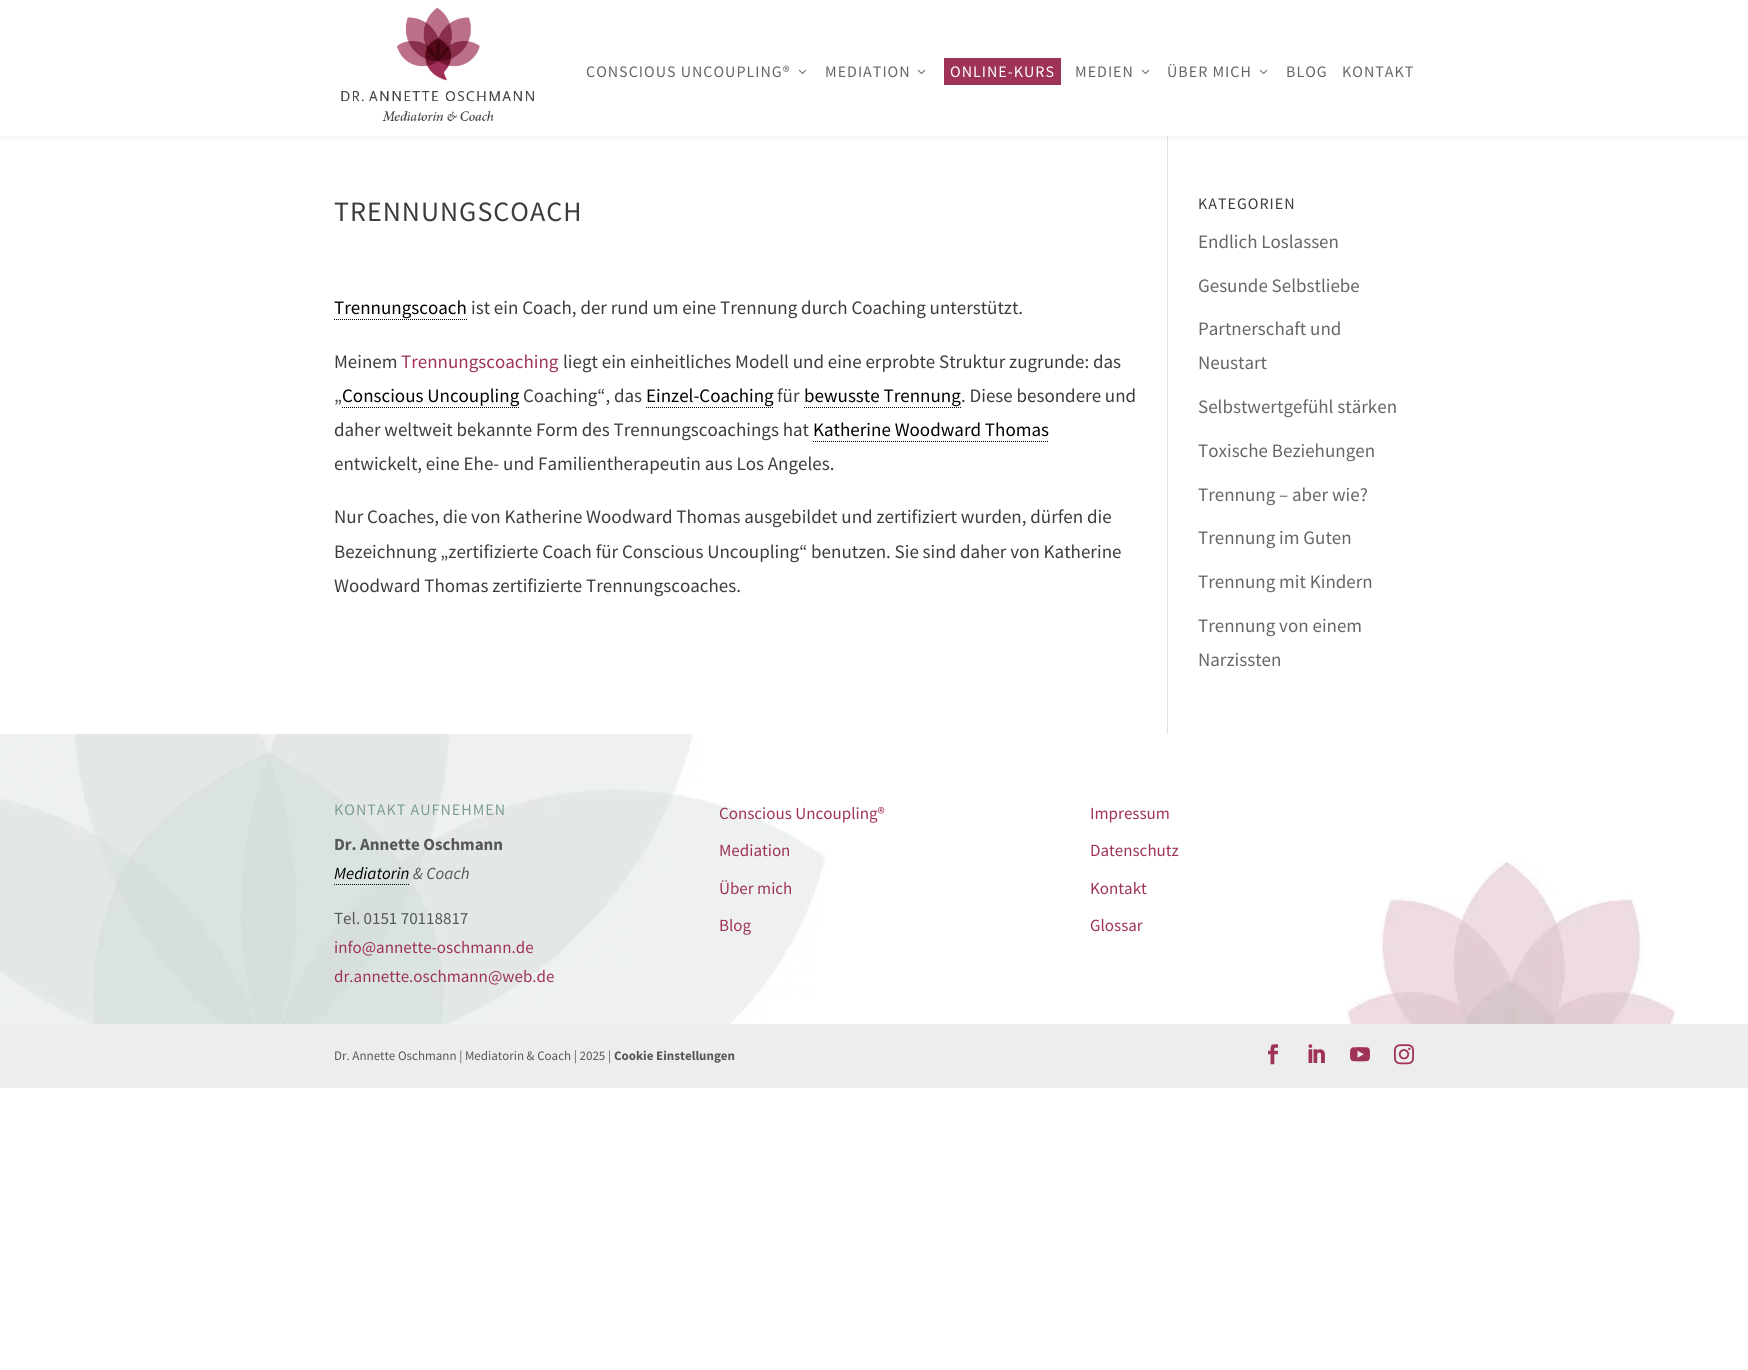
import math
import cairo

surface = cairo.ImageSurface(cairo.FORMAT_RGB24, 1748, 1370)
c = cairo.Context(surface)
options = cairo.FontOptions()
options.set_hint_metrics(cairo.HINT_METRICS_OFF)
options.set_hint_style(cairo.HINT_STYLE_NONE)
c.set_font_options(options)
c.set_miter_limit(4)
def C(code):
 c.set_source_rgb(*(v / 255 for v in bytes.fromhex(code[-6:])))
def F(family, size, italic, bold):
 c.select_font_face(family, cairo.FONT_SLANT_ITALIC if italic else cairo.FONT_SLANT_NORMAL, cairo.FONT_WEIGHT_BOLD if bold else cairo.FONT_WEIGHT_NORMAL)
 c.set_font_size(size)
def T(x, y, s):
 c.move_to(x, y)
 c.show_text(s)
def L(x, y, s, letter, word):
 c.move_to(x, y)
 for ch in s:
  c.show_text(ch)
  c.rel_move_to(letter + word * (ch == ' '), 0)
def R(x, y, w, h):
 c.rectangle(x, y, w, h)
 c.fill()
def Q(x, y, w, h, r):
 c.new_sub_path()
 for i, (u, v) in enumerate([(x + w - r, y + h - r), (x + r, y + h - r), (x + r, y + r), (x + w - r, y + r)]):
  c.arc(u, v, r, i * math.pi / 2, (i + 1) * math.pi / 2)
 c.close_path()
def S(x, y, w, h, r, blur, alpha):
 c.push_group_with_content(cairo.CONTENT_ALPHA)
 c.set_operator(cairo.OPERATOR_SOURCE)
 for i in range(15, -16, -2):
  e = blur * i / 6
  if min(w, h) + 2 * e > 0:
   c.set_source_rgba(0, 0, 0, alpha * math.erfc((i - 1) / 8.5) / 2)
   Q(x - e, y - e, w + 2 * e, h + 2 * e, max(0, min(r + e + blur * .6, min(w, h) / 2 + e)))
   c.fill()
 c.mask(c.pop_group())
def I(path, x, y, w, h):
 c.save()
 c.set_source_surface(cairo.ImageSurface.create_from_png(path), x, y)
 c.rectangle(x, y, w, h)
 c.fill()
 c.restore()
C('ffffff')
c.paint()
C('e2e2e2')
R(1167,135,1,599)
C('000000')
S(0,0,1748,136,0,3.5,.1)
C('ffffff')
R(0,0,1748,136)
I('1.png',341,7,193,115)
F('Source Sans Pro',16,0,0)
C('666666')
L(586,77,'CONSCIOUS UNCOUPLING®',1,0)
I('2.png',798,69,9,5)
L(825,77,'MEDIATION',1,0)
I('2.png',917,69,9,5)
C('9f3259')
R(944,58,117,27)
C('ffffff')
L(950,77,'ONLINE-KURS',1,0)
C('666666')
L(1075,77,'MEDIEN',1,0)
I('2.png',1141,69,9,5)
L(1167,77,'ÜBER MICH',1,0)
I('2.png',1259,69,9,5)
L(1286,77,'BLOG',1,0)
L(1342,77,'KONTAKT',1,0)
F('Source Sans Pro',28,0,0)
C('3c3c3b')
L(334,221,'TRENNUNGSCOACH',1,0)
F('Source Sans Pro',19,0,0)
C('000000')
T(334,314,'Trennungscoach')
c.new_path()
c.move_to(334,319.5)
c.line_to(467,319.5)
c.set_line_width(1)
c.set_dash([1,1])
c.stroke()
C('3c3c3b')
T(471,314,'ist ein Coach, der rund um eine Trennung durch Coaching unterstützt.')
T(334,368,'Meinem')
C('9f3259')
T(401,368,'Trennungscoaching')
C('3c3c3b')
T(563,368,'liegt ein einheitliches Modell und eine erprobte Struktur zugrunde: das')
T(334,402,'„')
C('000000')
T(342,402,'Conscious Uncoupling')
c.new_path()
c.move_to(342,407.5)
c.line_to(519,407.5)
c.stroke()
C('3c3c3b')
T(523,402,'Coaching“, das')
C('000000')
T(646,402,'Einzel-Coaching')
c.new_path()
c.move_to(646,407.5)
c.line_to(774,407.5)
c.stroke()
C('3c3c3b')
T(777,402,'für')
C('000000')
T(804,402,'bewusste Trennung')
c.new_path()
c.move_to(804,407.5)
c.line_to(961,407.5)
c.stroke()
C('3c3c3b')
T(961,402,'. Diese besondere und')
T(334,436,'daher weltweit bekannte Form des Trennungscoachings hat')
C('000000')
T(813,436,'Katherine Woodward Thomas')
c.new_path()
c.move_to(813,441.5)
c.line_to(1049,441.5)
c.stroke()
C('3c3c3b')
T(334,470,'entwickelt, eine Ehe- und Familientherapeutin aus Los Angeles.')
T(334,523,'Nur Coaches, die von Katherine Woodward Thomas ausgebildet und zertifiziert wurden, dürfen die')
T(334,558,'Bezeichnung „zertifizierte Coach für Conscious Uncoupling“ benutzen. Sie sind daher von Katherine')
T(334,592,'Woodward Thomas zertifizierte Trennungscoaches.')
F('Source Sans Pro',16,0,0)
L(1198,209,'KATEGORIEN',1,0)
F('Source Sans Pro',19,0,0)
C('666666')
T(1198,248,'Endlich Loslassen')
T(1198,292,'Gesunde Selbstliebe')
T(1198,335,'Partnerschaft und')
T(1198,369,'Neustart')
T(1198,413,'Selbstwertgefühl stärken')
T(1198,457,'Toxische Beziehungen')
T(1198,501,'Trennung – aber wie?')
T(1198,544,'Trennung im Guten')
T(1198,588,'Trennung mit Kindern')
T(1198,632,'Trennung von einem')
T(1198,666,'Narzissten')
I('3.png',0,734,1675,290)
F('Source Sans Pro',16,0,0)
C('7d9d92')
L(334,815,'KONTAKT AUFNEHMEN',1,0)
F('Source Sans Pro',17,0,1)
C('575757')
T(334,850,'Dr. Annette Oschmann')
F('Source Sans Pro',17,1,0)
C('000000')
T(334,879,'Mediatorin')
c.new_path()
c.move_to(334,884.5)
c.line_to(409,884.5)
c.stroke()
C('575757')
T(413,879,'& Coach')
F('Source Sans Pro',17,0,0)
T(334,924,'Tel. 0151 70118817')
C('9f3259')
T(334,953,'info@annette-oschmann.de')
T(334,982,'dr.annette.oschmann@web.de')
T(719,819,'Conscious Uncoupling®')
T(719,856,'Mediation')
T(719,894,'Über mich')
T(719,931,'Blog')
T(1090,819,'Impressum')
T(1090,856,'Datenschutz')
T(1090,894,'Kontakt')
T(1090,931,'Glossar')
C('ededed')
R(0,1024,1748,64)
F('Source Sans Pro',13,0,0)
C('575757')
T(334,1060,'Dr. Annette Oschmann | Mediatorin & Coach | 2025 |')
F('Source Sans Pro',13,0,1)
T(614,1060,'Cookie Einstellungen')
I('4.png',1268,1044,10,21)
I('5.png',1308,1044,17,19)
I('6.png',1350,1047,20,15)
I('7.png',1394,1044,20,21)
surface.write_to_png('o.png')
